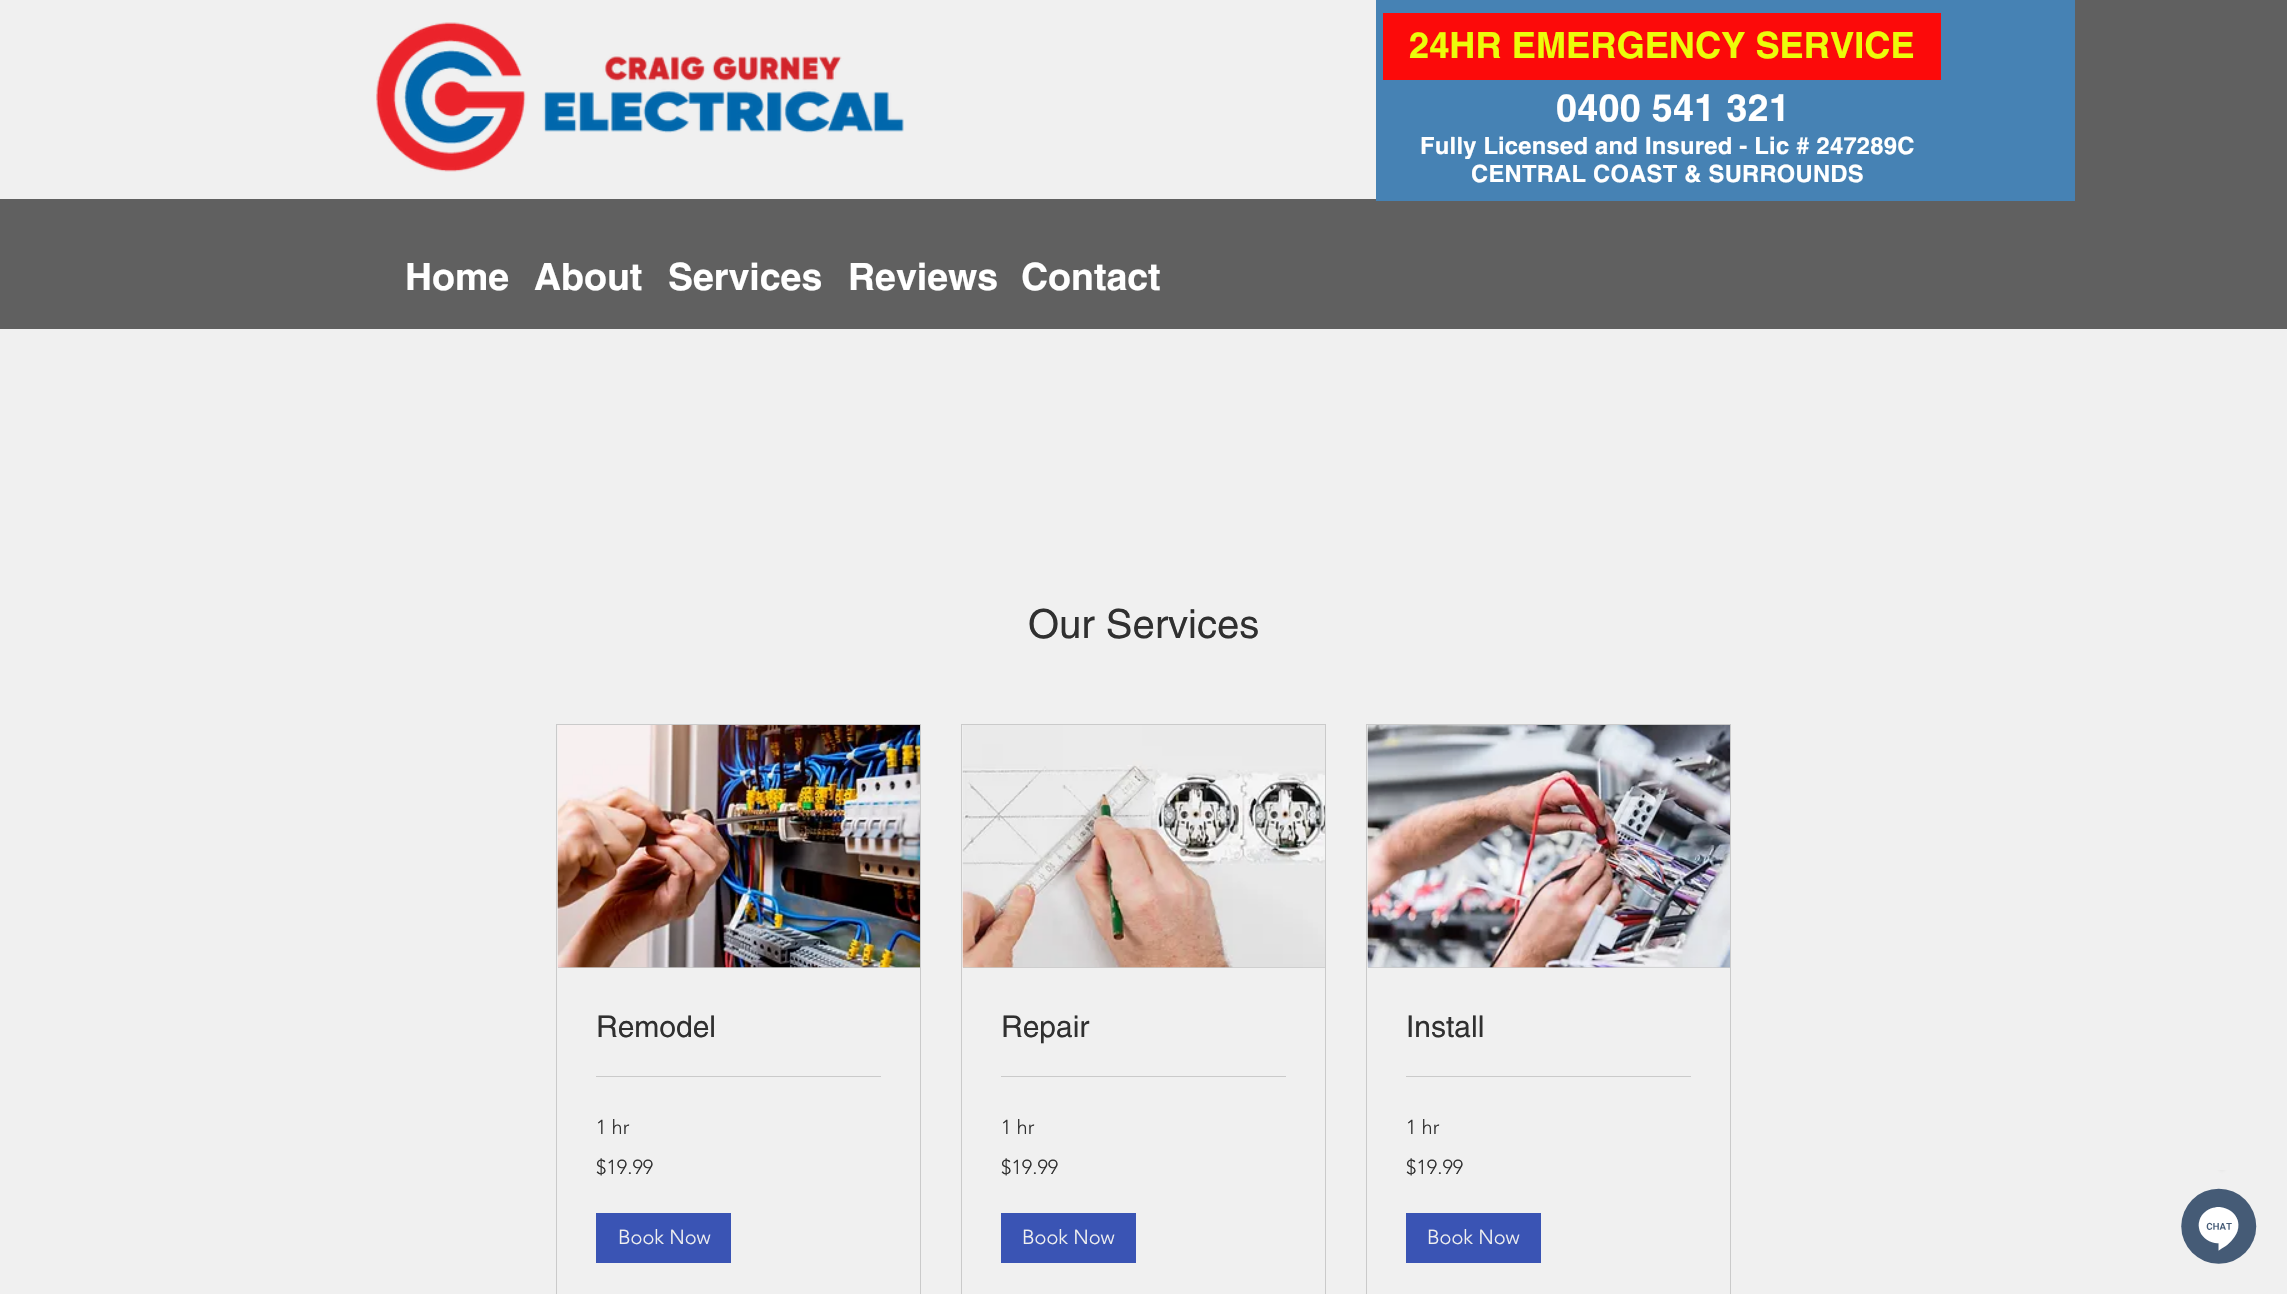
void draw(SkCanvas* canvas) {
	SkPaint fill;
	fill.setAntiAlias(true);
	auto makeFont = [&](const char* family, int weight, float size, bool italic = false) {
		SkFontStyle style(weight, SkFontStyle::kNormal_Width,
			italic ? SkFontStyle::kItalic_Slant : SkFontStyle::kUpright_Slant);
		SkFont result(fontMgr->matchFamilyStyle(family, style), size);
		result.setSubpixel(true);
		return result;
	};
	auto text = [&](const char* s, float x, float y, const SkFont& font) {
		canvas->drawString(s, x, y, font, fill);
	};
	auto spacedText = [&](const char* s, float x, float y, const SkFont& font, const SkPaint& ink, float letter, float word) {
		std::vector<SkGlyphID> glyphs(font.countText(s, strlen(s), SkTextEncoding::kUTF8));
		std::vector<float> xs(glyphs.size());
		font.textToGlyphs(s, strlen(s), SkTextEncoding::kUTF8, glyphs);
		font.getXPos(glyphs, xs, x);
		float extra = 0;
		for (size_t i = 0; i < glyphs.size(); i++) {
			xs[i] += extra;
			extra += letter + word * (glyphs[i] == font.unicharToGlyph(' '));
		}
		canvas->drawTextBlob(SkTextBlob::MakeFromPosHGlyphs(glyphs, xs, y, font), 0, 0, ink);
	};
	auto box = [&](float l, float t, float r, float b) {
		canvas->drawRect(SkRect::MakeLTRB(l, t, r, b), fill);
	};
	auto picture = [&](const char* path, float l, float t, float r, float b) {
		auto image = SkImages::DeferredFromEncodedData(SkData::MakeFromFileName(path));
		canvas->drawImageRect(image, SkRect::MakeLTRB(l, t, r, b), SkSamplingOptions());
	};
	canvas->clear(0xFFF0F0F0);
	fill.setColor(0xFF606060);
	box(0, 0, 2287, 329);
	fill.setColor(0xFFF0F0F0);
	box(0, 0, 1376, 199);
	picture("image0.png", 376, 22, 904, 172);
	fill.setColor(0xFF4682B4);
	box(1376, 0, 2075, 201);
	fill.setColor(0xFFFC0A0A);
	box(1383, 13, 1941, 80);
	fill.setStyle(SkPaint::kStroke_Style);
	fill.setStrokeWidth(1);
	fill.setColor(0xFFCACACA);
	canvas->drawRect(SkRect::MakeLTRB(556.5f, 724.5f, 920.5f, 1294.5f), fill);
	fill.setStyle(SkPaint::kFill_Style);
	box(558, 967, 920, 968);
	picture("image1.png", 557, 725, 920, 968);
	box(596, 1076, 881, 1077);
	fill.setColor(0xFF3A54B4);
	box(596, 1213, 731, 1263);
	fill.setStyle(SkPaint::kStroke_Style);
	fill.setColor(0xFFCACACA);
	canvas->drawRect(SkRect::MakeLTRB(961.5f, 724.5f, 1325.5f, 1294.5f), fill);
	fill.setStyle(SkPaint::kFill_Style);
	box(963, 967, 1325, 968);
	picture("image2.png", 962, 725, 1325, 968);
	box(1001, 1076, 1286, 1077);
	fill.setColor(0xFF3A54B4);
	box(1001, 1213, 1136, 1263);
	fill.setStyle(SkPaint::kStroke_Style);
	fill.setColor(0xFFCACACA);
	canvas->drawRect(SkRect::MakeLTRB(1366.5f, 724.5f, 1730.5f, 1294.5f), fill);
	fill.setStyle(SkPaint::kFill_Style);
	box(1368, 967, 1730, 968);
	picture("image3.png", 1367, 725, 1730, 968);
	box(1406, 1076, 1691, 1077);
	fill.setColor(0xFF3A54B4);
	box(1406, 1213, 1541, 1263);
	picture("image4.png", 2181, 1170, 2257, 1264);
	auto font1 = makeFont("helvetica", 700, 36.25f);
	fill.setColor(0xFFECFC0A);
	text("24HR EMERGENCY SERVICE", 1409, 58, font1);
	auto font2 = makeFont("helvetica", 700, 37.5f);
	fill.setColor(0xFFFFFFFF);
	spacedText("0400 541 321", 1556, 121, font2, fill, 0.4f, 0);
	auto font3 = makeFont("helvetica", 700, 23.75f);
	spacedText("Fully L", 1420, 154, font3, fill, 0.25f, 0);
	spacedText("icensed and Insured - Lic # 247289C", 1498, 154, font3, fill, 0.25f, 0);
	spacedText("CENTRAL COAST & SURROUNDS", 1471, 182, font3, fill, 0.25f, 0);
	text("Home", 405, 290, font2);
	text("About", 534, 290, font2);
	text("Services", 668, 290, font2);
	text("Reviews", 848, 290, font2);
	text("Contact", 1021, 290, font2);
	auto font4 = makeFont("helvetica", 400, 40);
	fill.setColor(0xFF303030);
	text("Our Services", 1028, 638, font4);
	auto font5 = makeFont("helvetica", 400, 30);
	text("Remodel", 596, 1037, font5);
	auto font6 = makeFont("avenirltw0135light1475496", 300, 20);
	text("1 hr", 596, 1134, font6);
	text("$19.99", 596, 1174, font6);
	fill.setColor(0xFFF0F0F0);
	text("Book Now", 618, 1244, font6);
	fill.setColor(0xFF303030);
	text("Repair", 1001, 1037, font5);
	text("1 hr", 1001, 1134, font6);
	text("$19.99", 1001, 1174, font6);
	fill.setColor(0xFFF0F0F0);
	text("Book Now", 1022, 1244, font6);
	fill.setColor(0xFF303030);
	text("Install", 1406, 1037, font5);
	text("1 hr", 1406, 1134, font6);
	text("$19.99", 1406, 1174, font6);
	fill.setColor(0xFFF0F0F0);
	text("Book Now", 1427, 1244, font6);
}
